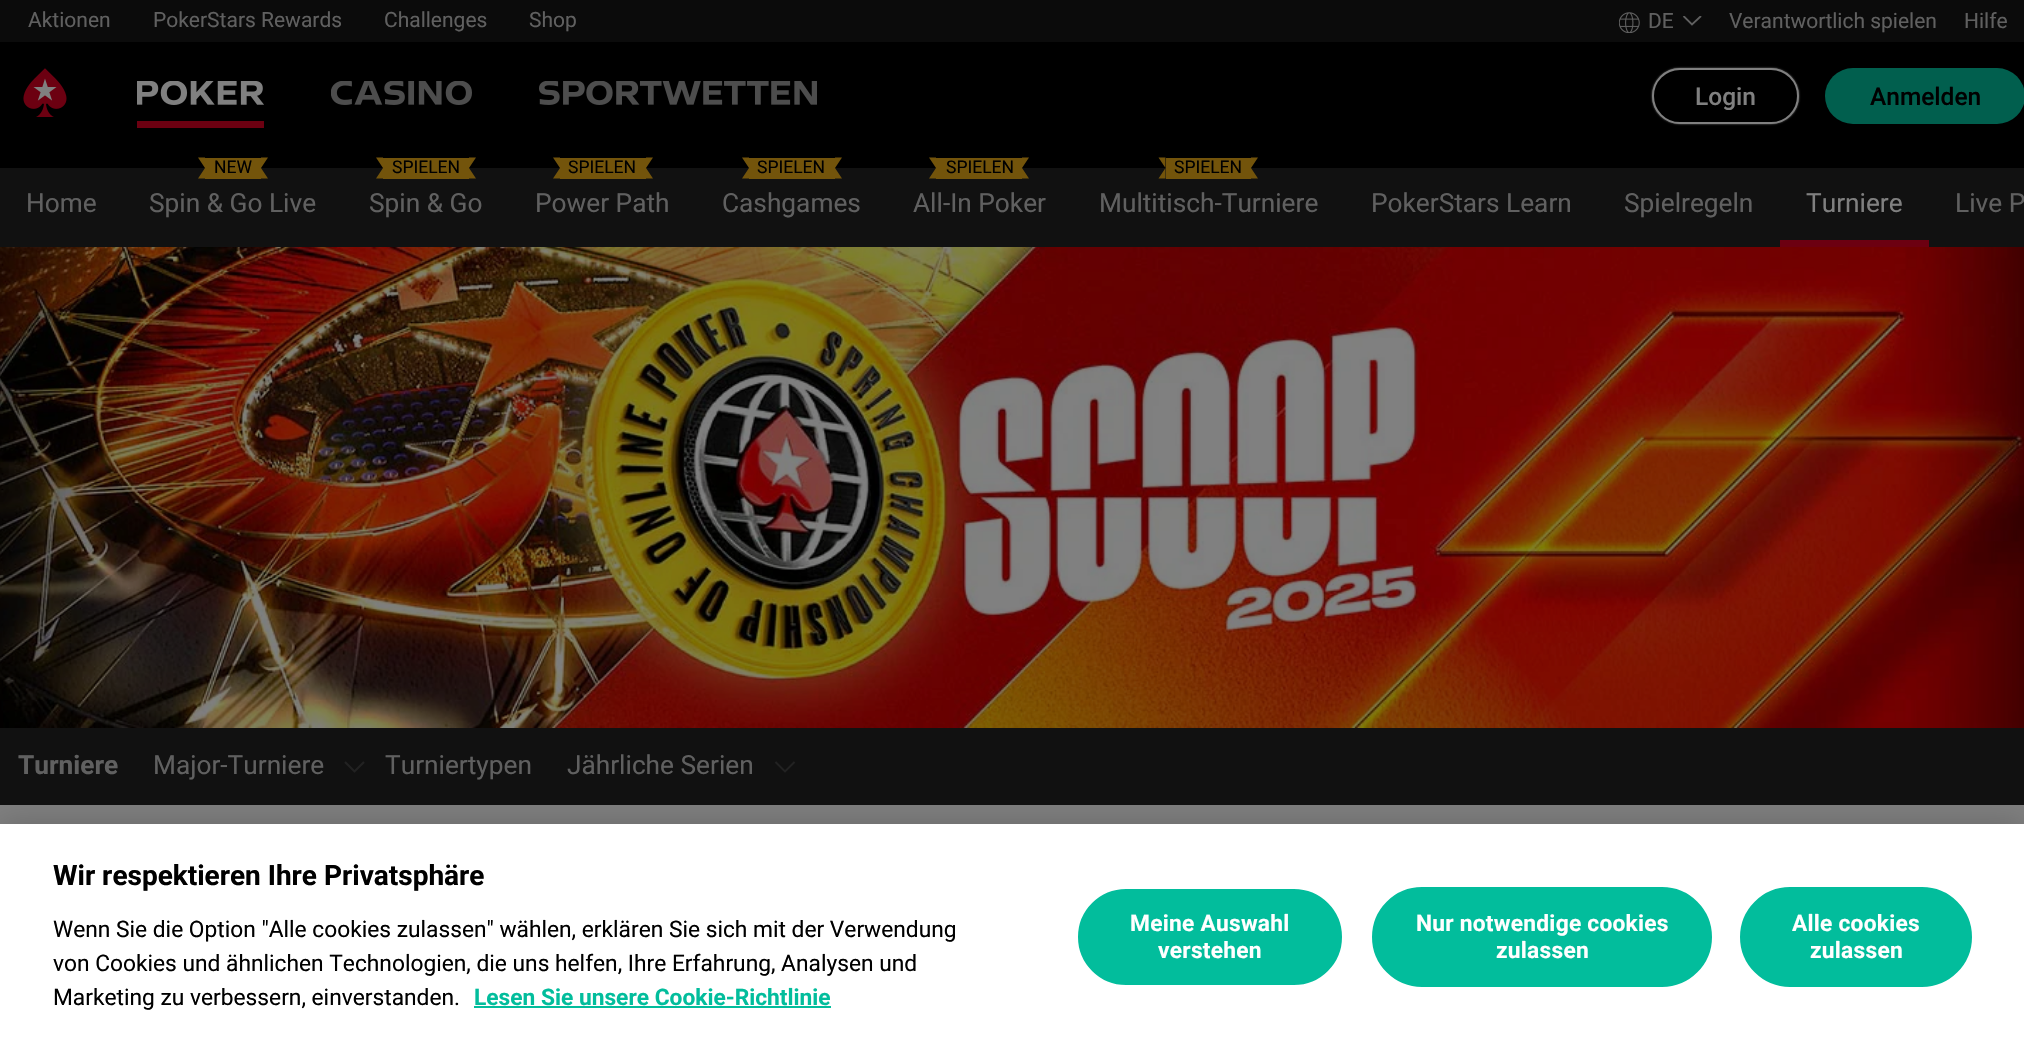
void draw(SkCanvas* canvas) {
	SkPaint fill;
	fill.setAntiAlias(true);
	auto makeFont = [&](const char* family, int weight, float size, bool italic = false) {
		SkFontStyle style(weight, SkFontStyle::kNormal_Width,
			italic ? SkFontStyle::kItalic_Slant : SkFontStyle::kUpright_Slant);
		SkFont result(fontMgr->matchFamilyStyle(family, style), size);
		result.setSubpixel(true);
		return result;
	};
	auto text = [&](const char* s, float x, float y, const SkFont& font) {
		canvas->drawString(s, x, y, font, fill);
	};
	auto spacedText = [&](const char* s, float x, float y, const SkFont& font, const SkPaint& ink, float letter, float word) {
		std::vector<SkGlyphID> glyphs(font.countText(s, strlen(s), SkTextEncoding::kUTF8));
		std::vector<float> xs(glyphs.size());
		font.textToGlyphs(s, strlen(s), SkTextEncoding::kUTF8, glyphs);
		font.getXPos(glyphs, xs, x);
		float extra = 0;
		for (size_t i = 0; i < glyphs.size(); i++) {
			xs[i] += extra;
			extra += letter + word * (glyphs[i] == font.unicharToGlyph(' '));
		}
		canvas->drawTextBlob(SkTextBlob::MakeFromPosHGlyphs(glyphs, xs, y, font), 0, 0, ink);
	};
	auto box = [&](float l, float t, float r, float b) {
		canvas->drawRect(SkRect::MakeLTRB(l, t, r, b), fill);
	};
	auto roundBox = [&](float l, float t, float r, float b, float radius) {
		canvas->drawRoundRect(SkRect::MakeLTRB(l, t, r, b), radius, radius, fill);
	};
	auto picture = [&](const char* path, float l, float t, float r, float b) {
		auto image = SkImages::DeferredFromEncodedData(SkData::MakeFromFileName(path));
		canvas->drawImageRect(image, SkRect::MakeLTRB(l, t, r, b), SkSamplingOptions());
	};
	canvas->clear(0xFF000000);
	fill.setColor(0xFF0B0B0B);
	box(0, 0, 2024, 42);
	picture("image0.png", 1619, 12, 1640, 33);
	canvas->save();
	canvas->clipRect(SkRect::MakeLTRB(1682, 16, 1703, 26));
	fill.setStyle(SkPaint::kStroke_Style);
	fill.setStrokeWidth(1.8f);
	fill.setColor(0xFF606060);
	canvas->drawPath(SkPathBuilder().moveTo(1701, 16).lineTo(1692, 24.5f).lineTo(1683.5f, 16).detach(), fill);
	canvas->restore();
	picture("image1.png", 23, 68, 67, 117);
	fill.setStyle(SkPaint::kFill_Style);
	fill.setColor(0xFF6C0011);
	box(137, 121, 264, 128);
	picture("image2.png", 137, 81, 264, 105);
	picture("image3.png", 331, 81, 472, 105);
	picture("image4.png", 539, 81, 817, 105);
	fill.setColor(0xFF808080);
	fill.setMaskFilter(SkMaskFilter::MakeBlur(kNormal_SkBlurStyle, 1));
	canvas->drawRoundRect(SkRect::MakeLTRB(1652, 68, 1799, 124), 28, 28, fill);
	fill.setMaskFilter(nullptr);
	fill.setColor(0xFF000000);
	canvas->drawRoundRect(SkRect::MakeLTRB(1653, 69, 1798, 123), 27, 27, fill);
	fill.setStyle(SkPaint::kStroke_Style);
	fill.setStrokeWidth(2);
	fill.setColor(0xFF808080);
	canvas->drawRoundRect(SkRect::MakeLTRB(1653, 69, 1798, 123), 27, 27, fill);
	fill.setStyle(SkPaint::kFill_Style);
	fill.setColor(0xFF015F4E);
	roundBox(1825, 68, 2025, 124, 28);
	fill.setColor(0xFF111111);
	box(0, 168, 2024, 247);
	fill.setColor(0xFF73540B);
	canvas->drawPath(SkPathBuilder().moveTo(198, 157.5f).lineTo(205, 157.5f).lineTo(205, 168).close().moveTo(205, 178.5f).lineTo(198, 178.5f).lineTo(205, 168).close().detach(), fill);
	canvas->drawPath(SkPathBuilder().moveTo(261, 157.5f).lineTo(268, 157.5f).lineTo(261, 168).close().moveTo(268, 178.5f).lineTo(261, 178.5f).lineTo(261, 168).close().detach(), fill);
	box(205, 158, 261, 179);
	canvas->drawPath(SkPathBuilder().moveTo(376, 157.5f).lineTo(383, 157.5f).lineTo(383, 168).close().moveTo(383, 178.5f).lineTo(376, 178.5f).lineTo(383, 168).close().detach(), fill);
	canvas->drawPath(SkPathBuilder().moveTo(469, 157.5f).lineTo(476, 157.5f).lineTo(469, 168).close().moveTo(476, 178.5f).lineTo(469, 178.5f).lineTo(469, 168).close().detach(), fill);
	box(383, 158, 469, 179);
	canvas->drawPath(SkPathBuilder().moveTo(553, 157.5f).lineTo(560, 157.5f).lineTo(560, 168).close().moveTo(560, 178.5f).lineTo(553, 178.5f).lineTo(560, 168).close().detach(), fill);
	canvas->drawPath(SkPathBuilder().moveTo(646, 157.5f).lineTo(653, 157.5f).lineTo(646, 168).close().moveTo(653, 178.5f).lineTo(646, 178.5f).lineTo(646, 168).close().detach(), fill);
	box(560, 158, 646, 179);
	canvas->drawPath(SkPathBuilder().moveTo(742, 157.5f).lineTo(749, 157.5f).lineTo(749, 168).close().moveTo(749, 178.5f).lineTo(742, 178.5f).lineTo(749, 168).close().detach(), fill);
	canvas->drawPath(SkPathBuilder().moveTo(835, 157.5f).lineTo(842, 157.5f).lineTo(835, 168).close().moveTo(842, 178.5f).lineTo(835, 178.5f).lineTo(835, 168).close().detach(), fill);
	box(749, 158, 835, 179);
	canvas->drawPath(SkPathBuilder().moveTo(929, 157.5f).lineTo(936, 157.5f).lineTo(936, 168).close().moveTo(936, 178.5f).lineTo(929, 178.5f).lineTo(936, 168).close().detach(), fill);
	canvas->drawPath(SkPathBuilder().moveTo(1022, 157.5f).lineTo(1029, 157.5f).lineTo(1022, 168).close().moveTo(1029, 178.5f).lineTo(1022, 178.5f).lineTo(1022, 168).close().detach(), fill);
	box(936, 158, 1022, 179);
	canvas->drawPath(SkPathBuilder().moveTo(1158.5f, 157.5f).lineTo(1165.5f, 157.5f).lineTo(1165.5f, 168).close().moveTo(1165.5f, 178.5f).lineTo(1158.5f, 178.5f).lineTo(1165.5f, 168).close().detach(), fill);
	canvas->drawPath(SkPathBuilder().moveTo(1251, 157.5f).lineTo(1258, 157.5f).lineTo(1251, 168).close().moveTo(1258, 178.5f).lineTo(1251, 178.5f).lineTo(1251, 168).close().detach(), fill);
	box(1166, 158, 1251, 179);
	fill.setColor(0xFF6C0011);
	box(1780, 240, 1929, 247);
	fill.setColor(0xFF808080);
	box(0, 805, 2024, 824);
	picture("image5.png", 0, 247, 2024, 728);
	fill.setColor(0xFF111111);
	box(0, 728, 2024, 805);
	fill.setStyle(SkPaint::kStroke_Style);
	fill.setStrokeWidth(1.9f);
	fill.setColor(0xFF222222);
	canvas->drawPath(SkPathBuilder().moveTo(364, 762).lineTo(354.5f, 771.5f).lineTo(345, 762).detach(), fill);
	canvas->drawPath(SkPathBuilder().moveTo(794.5f, 762).lineTo(785, 771.5f).lineTo(775.5f, 762).detach(), fill);
	fill.setStyle(SkPaint::kFill_Style);
	fill.setColor(0x33000000);
	fill.setMaskFilter(SkMaskFilter::MakeBlur(kNormal_SkBlurStyle, 16));
	canvas->drawRect(SkRect::MakeLTRB(0, 824, 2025, 1050), fill);
	fill.setMaskFilter(nullptr);
	fill.setColor(0xFFFFFFFF);
	box(0, 824, 2024, 1050);
	fill.setColor(0xFF02BD9C);
	box(474, 1006, 831, 1008);
	canvas->drawRoundRect(SkRect::MakeLTRB(1077, 888, 1343, 986), 49, 49, fill);
	fill.setStyle(SkPaint::kStroke_Style);
	fill.setStrokeWidth(2);
	fill.setColor(0xFFFFFFFF);
	canvas->drawRoundRect(SkRect::MakeLTRB(1077, 888, 1343, 986), 49, 49, fill);
	fill.setStyle(SkPaint::kFill_Style);
	fill.setColor(0xFF02BD9C);
	canvas->drawRoundRect(SkRect::MakeLTRB(1373, 888, 1711, 986), 49, 49, fill);
	fill.setStyle(SkPaint::kStroke_Style);
	canvas->drawRoundRect(SkRect::MakeLTRB(1373, 888, 1711, 986), 49, 49, fill);
	fill.setStyle(SkPaint::kFill_Style);
	canvas->drawRoundRect(SkRect::MakeLTRB(1741, 888, 1971, 986), 49, 49, fill);
	fill.setStyle(SkPaint::kStroke_Style);
	canvas->drawRoundRect(SkRect::MakeLTRB(1741, 888, 1971, 986), 49, 49, fill);
	auto font1 = makeFont("Roboto", 400, 21);
	fill.setStyle(SkPaint::kFill_Style);
	fill.setColor(0xFF606060);
	text("Aktionen", 28, 27, font1);
	text("PokerStars Rewards", 153, 27, font1);
	text("Challenges", 384, 27, font1);
	text("Shop", 529, 27, font1);
	text("DE", 1648, 28, font1);
	text("Verantwortlich spielen", 1729, 28, font1);
	text("Hilfe", 1964, 28, font1);
	auto font2 = makeFont("Roboto", 500, 24.5f);
	fill.setColor(0xFF808080);
	text("Login", 1695, 105, font2);
	fill.setColor(0xFF000000);
	text("Anmelden", 1870, 105, font2);
	auto font3 = makeFont("Roboto", 400, 26.25f);
	fill.setColor(0xFF606060);
	text("Home", 26, 212, font3);
	auto font4 = makeFont("Roboto", 400, 17.5f);
	fill.setColor(0xFF000000);
	text("NEW", 214, 173, font4);
	fill.setColor(0xFF606060);
	text("Spin & Go Live", 149, 212, font3);
	fill.setColor(0xFF000000);
	text("SPIELEN", 392, 173, font4);
	fill.setColor(0xFF606060);
	text("Spin & Go", 369, 212, font3);
	fill.setColor(0xFF000000);
	text("SPIELEN", 568, 173, font4);
	fill.setColor(0xFF606060);
	text("Power Path", 535, 212, font3);
	fill.setColor(0xFF000000);
	text("SPIELEN", 757, 173, font4);
	fill.setColor(0xFF606060);
	text("Cashgames", 722, 212, font3);
	fill.setColor(0xFF000000);
	text("SPIELEN", 946, 173, font4);
	fill.setColor(0xFF606060);
	text("All-In Poker", 913, 212, font3);
	fill.setColor(0xFF000000);
	text("SPIELEN", 1174, 173, font4);
	fill.setColor(0xFF606060);
	text("Multitisch-Turniere", 1099, 212, font3);
	text("PokerStars Learn", 1371, 212, font3);
	text("Spielregeln", 1624, 212, font3);
	fill.setColor(0xFF808080);
	text("Turniere", 1806, 212, font3);
	fill.setColor(0xFF606060);
	text("Live P", 1955, 212, font3);
	auto font5 = makeFont("Roboto", 700, 26.25f);
	text("Turniere", 18, 774, font5);
	text("Major-Turniere", 153, 774, font3);
	text("Turniertypen", 385, 774, font3);
	text("Jährliche Serien", 567, 774, font3);
	auto font6 = makeFont("Roboto", 700, 28);
	fill.setColor(0xFF000000);
	text("Wir respektieren Ihre Privatsphäre", 53, 885, font6);
	auto font7 = makeFont("Roboto", 400, 22.75f);
	text("Wenn Sie die Option \"Alle cookies zulassen\" wählen, erklären Sie sich mit der Verwendung", 53, 937, font7);
	text("von Cookies und ähnlichen Technologien, die uns helfen, Ihre Erfahrung, Analysen und", 53, 971, font7);
	text("Marketing zu verbessern, einverstanden.", 53, 1005, font7);
	auto font8 = makeFont("Roboto", 700, 22.75f);
	fill.setColor(0xFF02BD9C);
	text("Lesen Sie unsere Cookie-Richtlinie", 474, 1005, font8);
	fill.setColor(0xFFFFFFFF);
	spacedText("Meine Auswahl", 1130, 931, font8, fill, 0.25f, 0);
	spacedText("verstehen", 1158, 958, font8, fill, 0.25f, 0);
	spacedText("Nur notwendige cookies", 1416, 931, font8, fill, 0.25f, 0);
	spacedText("zulassen", 1496, 958, font8, fill, 0.25f, 0);
	spacedText("Alle cookies", 1792, 931, font8, fill, 0.25f, 0);
	spacedText("zulassen", 1810, 958, font8, fill, 0.25f, 0);
}
